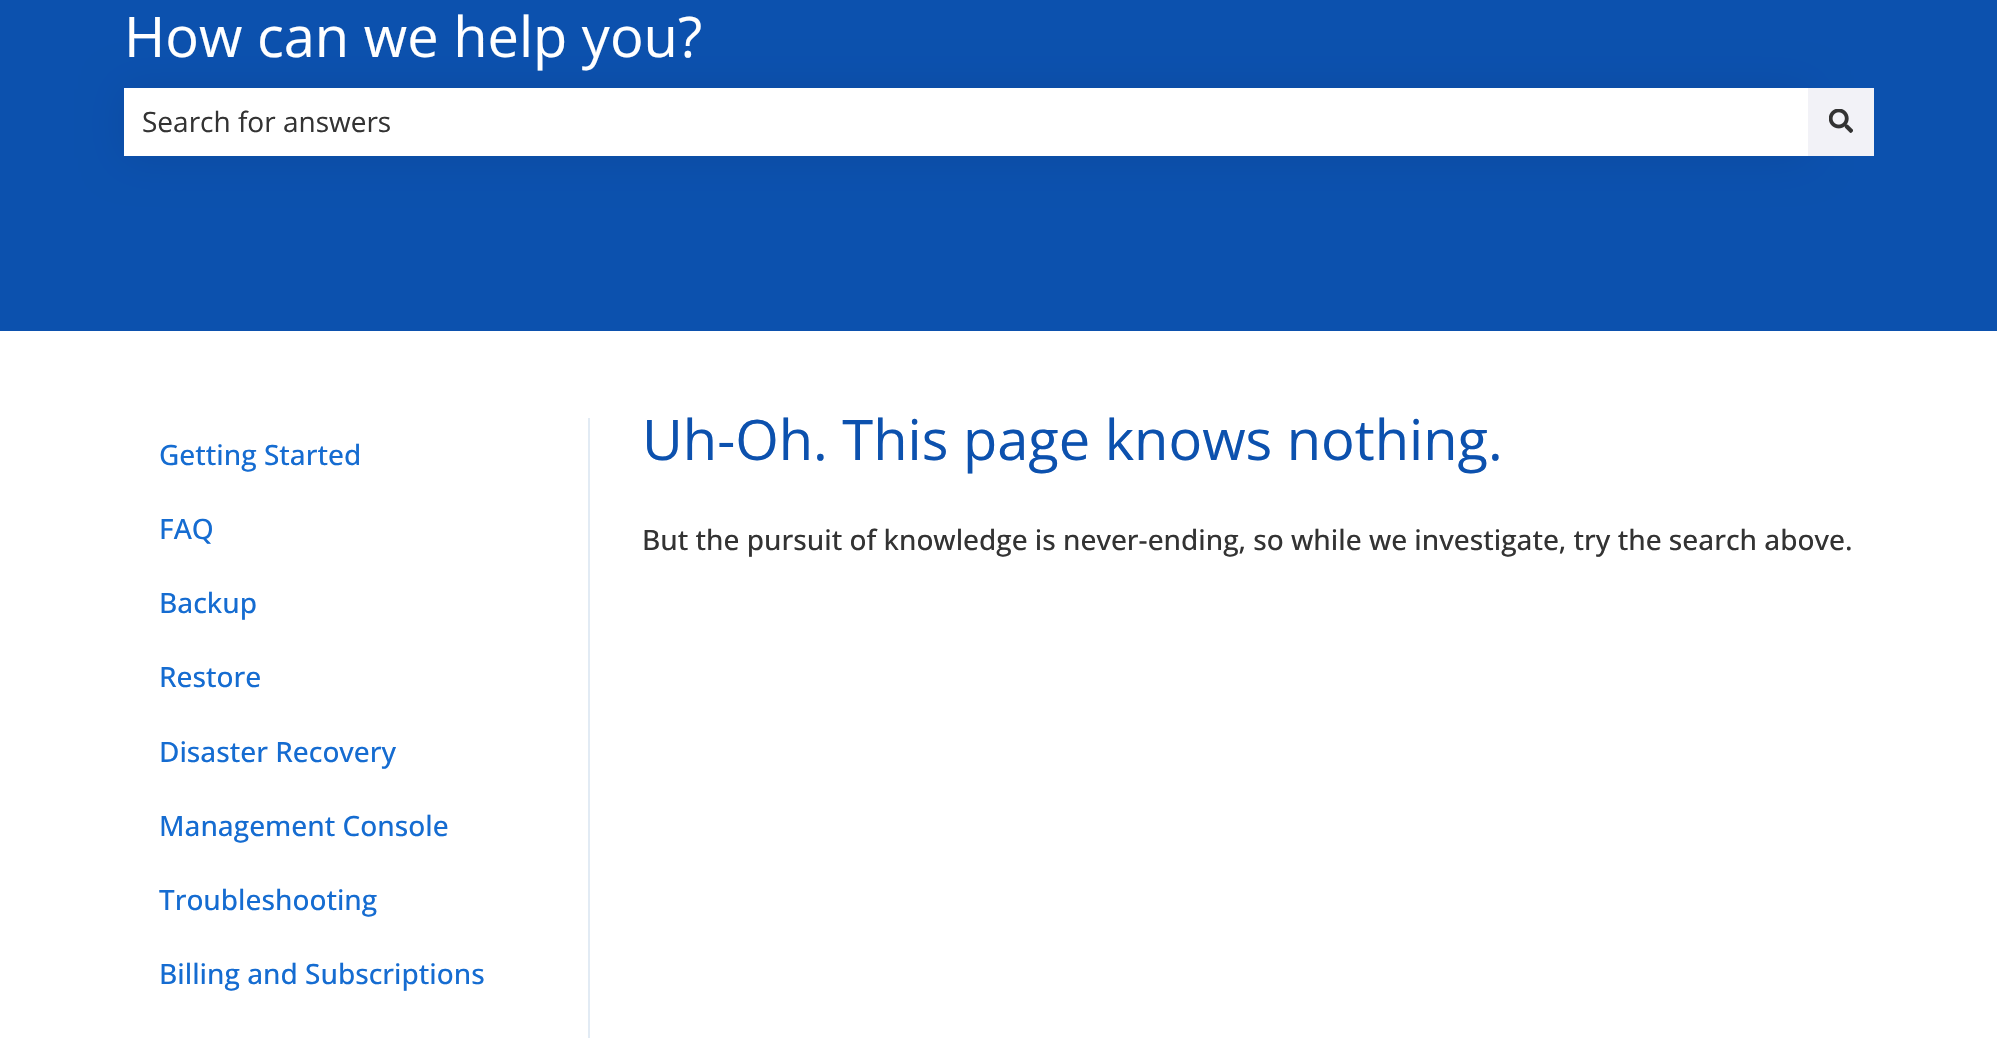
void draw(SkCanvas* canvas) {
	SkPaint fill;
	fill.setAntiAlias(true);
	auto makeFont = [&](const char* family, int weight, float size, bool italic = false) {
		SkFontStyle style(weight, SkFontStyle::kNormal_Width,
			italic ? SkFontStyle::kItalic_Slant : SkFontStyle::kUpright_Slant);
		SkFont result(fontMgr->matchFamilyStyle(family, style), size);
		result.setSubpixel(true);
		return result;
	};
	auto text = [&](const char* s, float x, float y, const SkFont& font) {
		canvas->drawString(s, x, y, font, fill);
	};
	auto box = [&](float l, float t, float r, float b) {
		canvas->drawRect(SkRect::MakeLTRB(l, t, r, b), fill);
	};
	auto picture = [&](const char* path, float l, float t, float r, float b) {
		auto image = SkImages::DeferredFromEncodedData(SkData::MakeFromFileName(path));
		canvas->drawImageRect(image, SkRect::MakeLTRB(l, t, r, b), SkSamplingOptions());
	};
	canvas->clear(0xFFFFFFFF);
	fill.setColor(0xFF0C51AE);
	box(0, 0, 1997, 331);
	fill.setColor(0x14000000);
	fill.setMaskFilter(SkMaskFilter::MakeBlur(kNormal_SkBlurStyle, 21));
	canvas->drawRect(SkRect::MakeLTRB(124, 89, 1808, 158), fill);
	fill.setMaskFilter(nullptr);
	fill.setColor(0xFFFFFFFF);
	box(124, 88, 1808, 156);
	fill.setColor(0xFFF2F2F7);
	box(1808, 88, 1874, 156);
	picture("image0.png", 1829, 109, 1853, 133);
	fill.setColor(0xFFE2EBF4);
	box(588, 418, 590, 1038);
	auto font1 = makeFont("Open Sans", 400, 56);
	fill.setColor(0xFFFFFFFF);
	text("How can we help you?", 124, 57, font1);
	auto font2 = makeFont("Open Sans", 400, 28);
	fill.setColor(0xFF333333);
	text("Search for answers", 142, 132, font2);
	auto font3 = makeFont("Open Sans", 500, 28);
	fill.setColor(0xFF156CD1);
	text("Getting Started", 159, 465, font3);
	text("FAQ", 159, 539, font3);
	text("Backup", 159, 613, font3);
	text("Restore", 159, 687, font3);
	text("Disaster Recovery", 159, 762, font3);
	text("Management Console", 159, 836, font3);
	text("Troubleshooting", 159, 910, font3);
	text("Billing and Subscriptions", 159, 984, font3);
	fill.setColor(0xFF0C51AE);
	text("Uh-Oh. This page knows nothing.", 642, 460, font1);
	fill.setColor(0xFF333333);
	text("But the pursuit of knowledge is never-ending, so while we investigate, try the search above.", 642, 550, font3);
}
